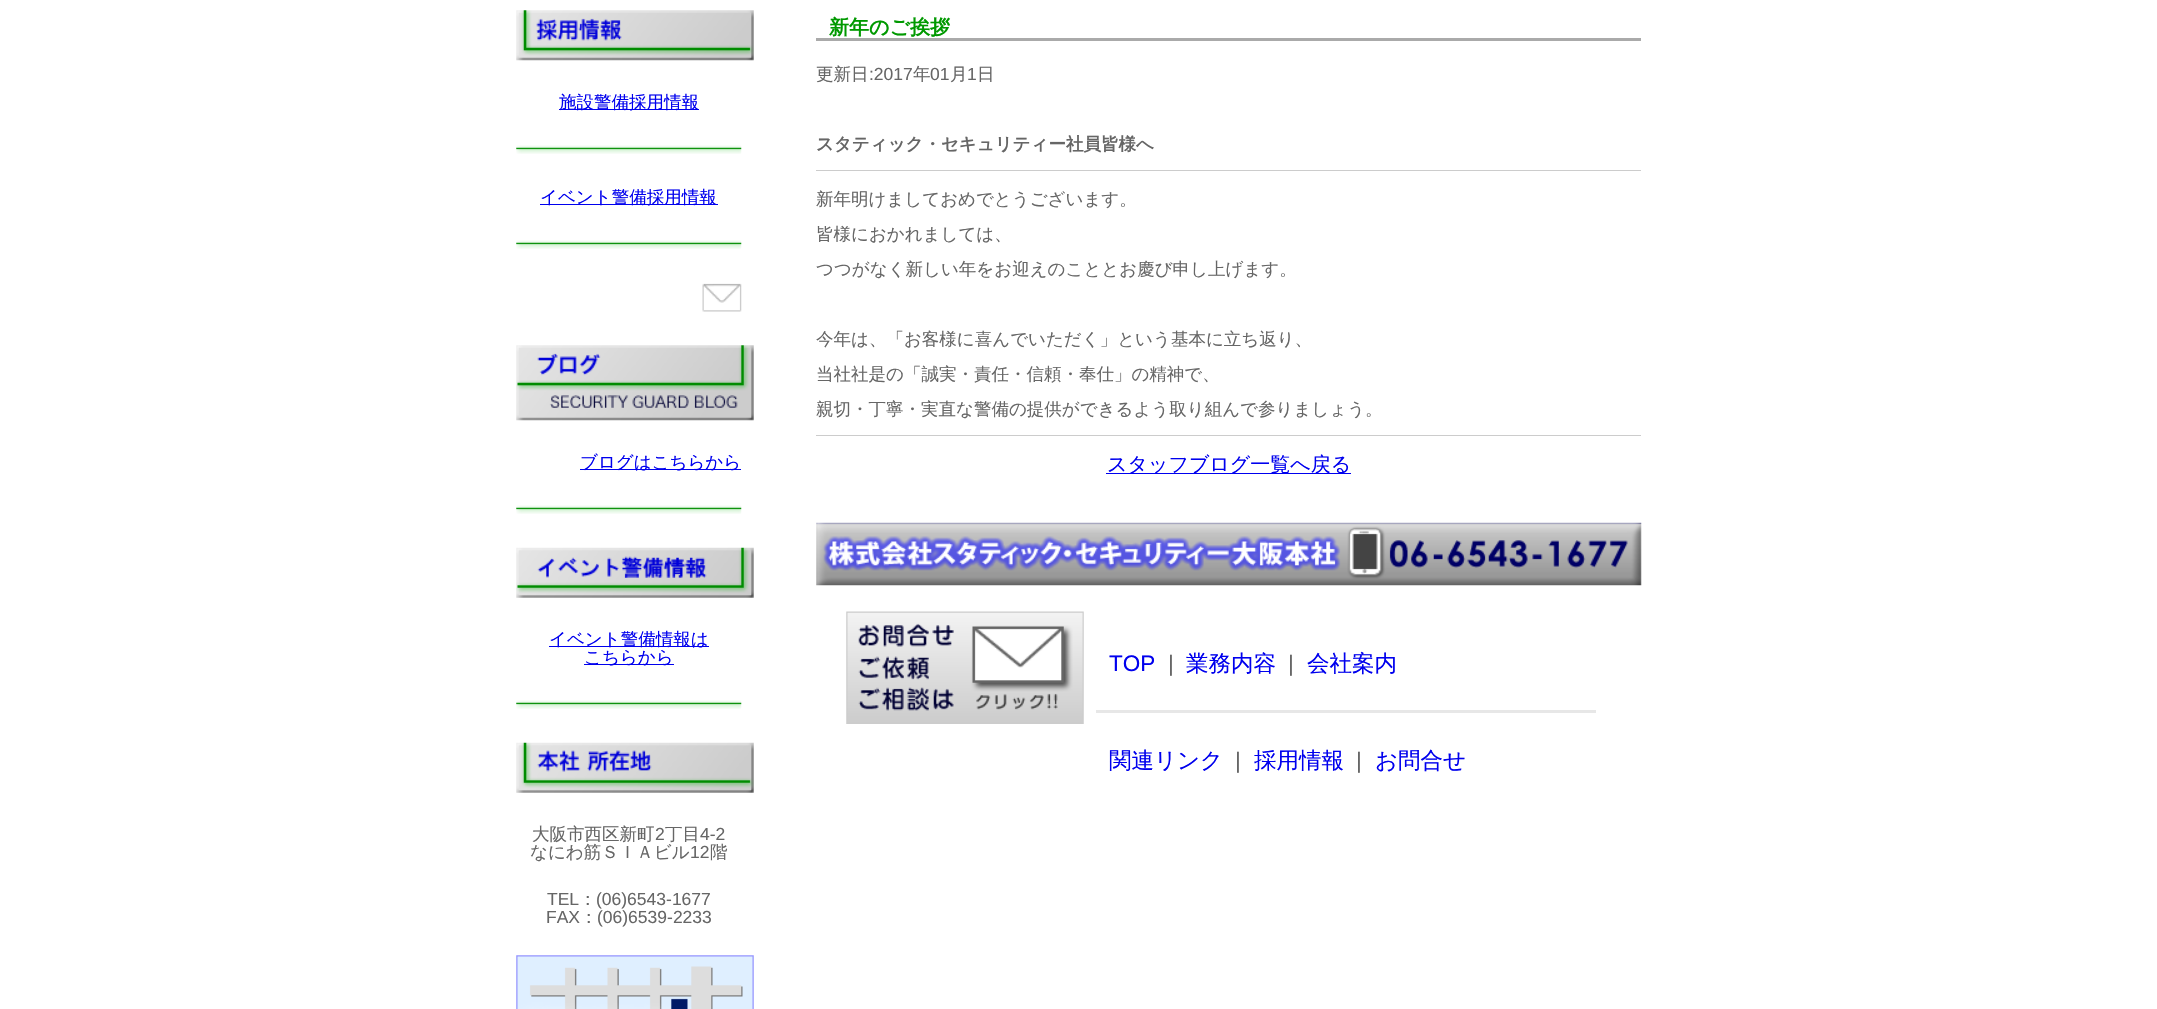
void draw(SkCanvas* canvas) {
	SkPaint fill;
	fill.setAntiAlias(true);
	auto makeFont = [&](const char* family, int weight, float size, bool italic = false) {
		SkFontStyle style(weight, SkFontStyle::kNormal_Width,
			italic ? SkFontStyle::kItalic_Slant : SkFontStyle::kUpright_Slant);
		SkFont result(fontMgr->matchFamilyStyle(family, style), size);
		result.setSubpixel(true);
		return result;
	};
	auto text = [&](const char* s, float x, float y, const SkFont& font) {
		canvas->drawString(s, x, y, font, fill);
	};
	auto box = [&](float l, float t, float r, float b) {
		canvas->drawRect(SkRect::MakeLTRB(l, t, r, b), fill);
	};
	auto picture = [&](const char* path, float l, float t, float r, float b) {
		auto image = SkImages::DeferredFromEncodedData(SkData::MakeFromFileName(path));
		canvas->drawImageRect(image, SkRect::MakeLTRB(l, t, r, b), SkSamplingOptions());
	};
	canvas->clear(0xFFFFFFFF);
	picture("image0.png", 516, 10, 754, 61);
	fill.setColor(0xFF0000EE);
	box(559, 109, 699, 110);
	picture("image1.png", 516, 145, 742, 154);
	box(540, 204, 718, 205);
	picture("image1.png", 516, 240, 742, 249);
	picture("image2.png", 702, 283, 742, 312);
	picture("image3.png", 516, 345, 754, 421);
	box(580, 469, 741, 470);
	picture("image1.png", 516, 505, 742, 514);
	picture("image4.png", 516, 547, 754, 598);
	box(549, 646, 709, 647);
	box(584, 664, 674, 665);
	picture("image1.png", 516, 700, 742, 709);
	picture("image5.png", 516, 742, 754, 793);
	picture("image6.png", 516, 955, 754, 1009);
	fill.setColor(0xFFAAAAAA);
	box(816, 38, 1641, 41);
	fill.setColor(0xFFCCCCCC);
	box(816, 170, 1641, 171);
	box(816, 435, 1641, 436);
	fill.setColor(0xFF0000EE);
	box(1106, 473, 1351, 474);
	picture("image7.png", 816, 522, 1642, 586);
	picture("image8.png", 846, 611, 1084, 724);
	fill.setColor(0xFFE7E7E7);
	box(1096, 710, 1596, 713);
	auto font1 = makeFont("WenQuanYi Zen Hei", 500, 17.5f);
	fill.setColor(0xFF0000EE);
	text("施設警備採用情報", 559, 108, font1);
	text("イベント警備採用情報", 540, 203, font1);
	text("ブログはこちらから", 580, 468, font1);
	text("イベント警備情報は", 549, 645, font1);
	text("こちらから", 584, 663, font1);
	fill.setColor(0xFF666666);
	text("大阪市西区新町", 532, 840, font1);
	auto font2 = makeFont("Liberation Sans", 400, 17.5f);
	text("2", 655, 840, font2);
	text("丁目", 665, 840, font1);
	text("4-2", 700, 840, font2);
	text("なにわ筋ＳＩＡビル", 530, 858, font1);
	text("12", 690, 858, font2);
	text("階", 710, 858, font1);
	text("TEL", 547, 905, font2);
	text("：", 579, 905, font1);
	text("(06)6543-1677", 596, 905, font2);
	text("FAX", 546, 923, font2);
	text("：", 580, 923, font1);
	text("(06)6539-2233", 597, 923, font2);
	auto font3 = makeFont("WenQuanYi Zen Hei", 700, 20);
	fill.setColor(0xFF009900);
	text("新年のご挨拶", 829, 34, font3);
	fill.setColor(0xFF666666);
	text("更新日", 816, 80, font1);
	text(":2017", 869, 80, font2);
	text("年", 913, 80, font1);
	text("01", 930, 80, font2);
	text("月", 950, 80, font1);
	text("1", 967, 80, font2);
	text("日", 977, 80, font1);
	auto font4 = makeFont("WenQuanYi Zen Hei", 700, 17.5f);
	text("スタティック・セキュリティー社員皆様へ", 816, 150, font4);
	text("新年明けましておめでとうございます。", 816, 205, font1);
	text("皆様におかれましては、", 816, 240, font1);
	text("つつがなく新しい年をお迎えのこととお慶び申し上げます。", 816, 275, font1);
	text("今年は、「お客様に喜んでいただく」という基本に立ち返り、", 816, 345, font1);
	text("当社社是の「誠実・責任・信頼・奉仕」の精神で、", 816, 380, font1);
	text("親切・丁寧・実直な警備の提供ができるよう取り組んで参りましょう。", 816, 415, font1);
	auto font5 = makeFont("WenQuanYi Zen Hei", 500, 20);
	fill.setColor(0xFF0000EE);
	text("スタッフブログ一覧へ戻る", 1107, 471, font5);
	auto font6 = makeFont("Liberation Sans", 400, 22.5f);
	text("TOP", 1109, 671, font6);
	fill.setColor(0xFF666666);
	text("|", 1168, 671, font6);
	auto font7 = makeFont("WenQuanYi Zen Hei", 500, 22.5f);
	fill.setColor(0xFF0000EE);
	text("業務内容", 1186, 671, font7);
	fill.setColor(0xFF666666);
	text("|", 1288, 671, font6);
	fill.setColor(0xFF0000EE);
	text("会社案内", 1307, 671, font7);
	text("関連リンク", 1109, 768, font7);
	fill.setColor(0xFF666666);
	text("|", 1235, 768, font6);
	fill.setColor(0xFF0000EE);
	text("採用情報", 1254, 768, font7);
	fill.setColor(0xFF666666);
	text("|", 1356, 768, font6);
	fill.setColor(0xFF0000EE);
	text("お問合せ", 1375, 768, font7);
}
